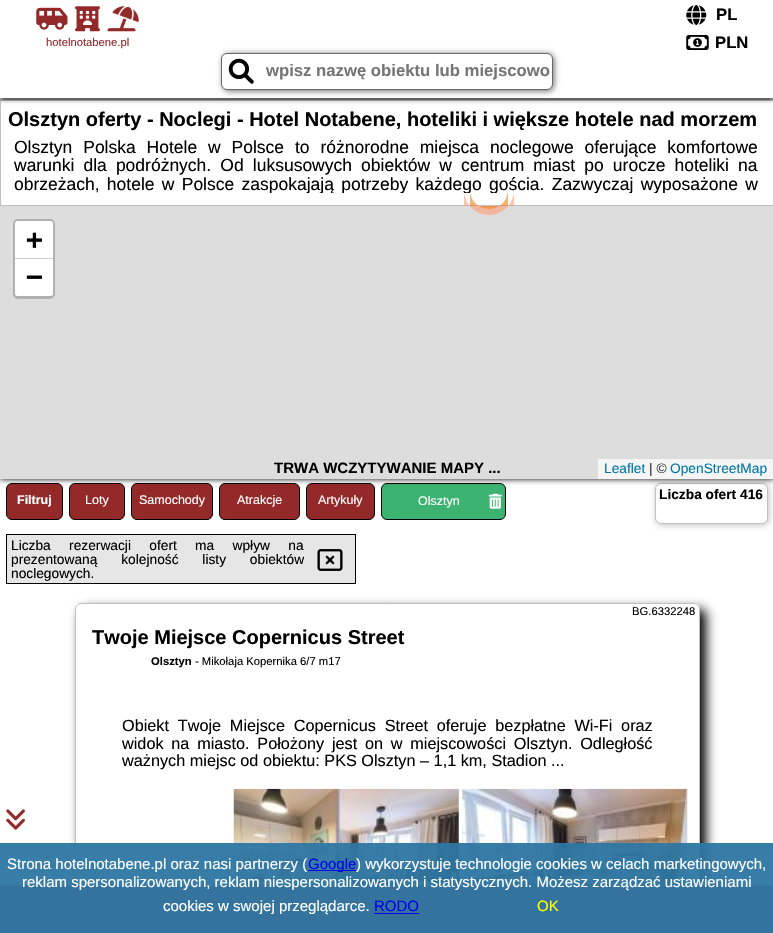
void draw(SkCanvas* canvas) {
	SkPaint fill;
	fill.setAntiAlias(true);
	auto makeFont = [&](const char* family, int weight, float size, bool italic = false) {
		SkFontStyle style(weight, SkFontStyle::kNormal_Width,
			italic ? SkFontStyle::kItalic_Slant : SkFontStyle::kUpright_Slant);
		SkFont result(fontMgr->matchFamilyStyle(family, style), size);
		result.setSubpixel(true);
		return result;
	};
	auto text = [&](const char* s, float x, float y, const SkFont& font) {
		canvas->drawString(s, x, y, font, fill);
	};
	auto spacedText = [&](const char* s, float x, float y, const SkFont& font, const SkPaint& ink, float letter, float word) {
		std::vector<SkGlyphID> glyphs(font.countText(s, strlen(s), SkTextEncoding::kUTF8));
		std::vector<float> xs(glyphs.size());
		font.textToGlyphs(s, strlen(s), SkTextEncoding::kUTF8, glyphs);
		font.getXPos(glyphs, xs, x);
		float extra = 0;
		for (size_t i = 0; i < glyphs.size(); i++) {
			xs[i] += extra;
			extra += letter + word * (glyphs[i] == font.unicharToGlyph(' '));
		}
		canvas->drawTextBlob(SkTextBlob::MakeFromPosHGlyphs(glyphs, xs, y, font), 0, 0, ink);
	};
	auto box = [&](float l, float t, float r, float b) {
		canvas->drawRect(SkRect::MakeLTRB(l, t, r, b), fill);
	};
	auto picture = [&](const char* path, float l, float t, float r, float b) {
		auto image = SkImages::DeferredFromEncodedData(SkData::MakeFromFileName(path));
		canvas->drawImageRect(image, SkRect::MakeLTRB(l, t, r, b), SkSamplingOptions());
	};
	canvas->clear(0xFFFFFFFF);
	fill.setColor(0xFF942929);
	canvas->drawRoundRect(SkRect::MakeLTRB(6.5f, 483.5f, 62.5f, 519.5f), 5.5f, 5.5f, fill);
	fill.setStyle(SkPaint::kStroke_Style);
	fill.setStrokeWidth(1);
	fill.setColor(0xFF000000);
	canvas->drawRoundRect(SkRect::MakeLTRB(6.5f, 483.5f, 62.5f, 519.5f), 5.5f, 5.5f, fill);
	fill.setStyle(SkPaint::kFill_Style);
	fill.setColor(0xFF942929);
	canvas->drawRoundRect(SkRect::MakeLTRB(69.5f, 483.5f, 124.5f, 519.5f), 5.5f, 5.5f, fill);
	fill.setStyle(SkPaint::kStroke_Style);
	fill.setColor(0xFF000000);
	canvas->drawRoundRect(SkRect::MakeLTRB(69.5f, 483.5f, 124.5f, 519.5f), 5.5f, 5.5f, fill);
	fill.setStyle(SkPaint::kFill_Style);
	fill.setColor(0xFF942929);
	canvas->drawRoundRect(SkRect::MakeLTRB(131.5f, 483.5f, 212.5f, 519.5f), 5.5f, 5.5f, fill);
	fill.setStyle(SkPaint::kStroke_Style);
	fill.setColor(0xFF000000);
	canvas->drawRoundRect(SkRect::MakeLTRB(131.5f, 483.5f, 212.5f, 519.5f), 5.5f, 5.5f, fill);
	fill.setStyle(SkPaint::kFill_Style);
	fill.setColor(0xFF942929);
	canvas->drawRoundRect(SkRect::MakeLTRB(219.5f, 483.5f, 299.5f, 519.5f), 5.5f, 5.5f, fill);
	fill.setStyle(SkPaint::kStroke_Style);
	fill.setColor(0xFF000000);
	canvas->drawRoundRect(SkRect::MakeLTRB(219.5f, 483.5f, 299.5f, 519.5f), 5.5f, 5.5f, fill);
	fill.setStyle(SkPaint::kFill_Style);
	fill.setColor(0xFF942929);
	canvas->drawRoundRect(SkRect::MakeLTRB(306.5f, 483.5f, 374.5f, 519.5f), 5.5f, 5.5f, fill);
	fill.setStyle(SkPaint::kStroke_Style);
	fill.setColor(0xFF000000);
	canvas->drawRoundRect(SkRect::MakeLTRB(306.5f, 483.5f, 374.5f, 519.5f), 5.5f, 5.5f, fill);
	fill.setStyle(SkPaint::kFill_Style);
	fill.setColor(0xFF3CB371);
	canvas->drawRoundRect(SkRect::MakeLTRB(381.5f, 483.5f, 505.5f, 519.5f), 5.5f, 5.5f, fill);
	fill.setStyle(SkPaint::kStroke_Style);
	fill.setColor(0xFF000000);
	canvas->drawRoundRect(SkRect::MakeLTRB(381.5f, 483.5f, 505.5f, 519.5f), 5.5f, 5.5f, fill);
	fill.setStyle(SkPaint::kFill_Style);
	fill.setColor(0xFFC0C0C0);
	fill.setMaskFilter(SkMaskFilter::MakeBlur(kNormal_SkBlurStyle, 3));
	canvas->drawRoundRect(SkRect::MakeLTRB(656, 484, 769, 525), 6, 6, fill);
	fill.setMaskFilter(nullptr);
	fill.setColor(0xFFFFFFFF);
	canvas->drawRoundRect(SkRect::MakeLTRB(655.5f, 483.5f, 767.5f, 523.5f), 5.5f, 5.5f, fill);
	fill.setStyle(SkPaint::kStroke_Style);
	fill.setColor(0xFFC0C0C0);
	canvas->drawRoundRect(SkRect::MakeLTRB(655.5f, 483.5f, 767.5f, 523.5f), 5.5f, 5.5f, fill);
	canvas->save();
	canvas->clipPath(SkPathBuilder(SkPathFillType::kEvenOdd).moveTo(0, 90).lineTo(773, 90).lineTo(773, 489).lineTo(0, 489).close().moveTo(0, 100).lineTo(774, 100).lineTo(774, 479).lineTo(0, 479).close().detach(), true);
	fill.setStyle(SkPaint::kFill_Style);
	fill.setColor(0xFF000000);
	fill.setMaskFilter(SkMaskFilter::MakeBlur(kNormal_SkBlurStyle, 3));
	canvas->drawRect(SkRect::MakeLTRB(0, 100, 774, 479), fill);
	fill.setMaskFilter(nullptr);
	canvas->restore();
	fill.setStyle(SkPaint::kStroke_Style);
	fill.setColor(0xFFC0C0C0);
	canvas->drawRect(SkRect::MakeLTRB(0.5f, 100.5f, 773.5f, 205.5f), fill);
	fill.setStyle(SkPaint::kFill_Style);
	fill.setColor(0xFF000000);
	fill.setMaskFilter(SkMaskFilter::MakeBlur(kNormal_SkBlurStyle, 3));
	canvas->drawRect(SkRect::MakeLTRB(0, 0, 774, 98), fill);
	fill.setMaskFilter(nullptr);
	fill.setColor(0xFFFFFFFF);
	box(0, 0, 773, 98);
	picture("image0.png", 686, 5, 707, 25);
	picture("image1.png", 36, 7, 68, 30);
	picture("image2.png", 75, 6, 100, 32);
	picture("image3.png", 107, 6, 139, 32);
	picture("image4.png", 686, 35, 709, 50);
	fill.setColor(0xFF676868);
	fill.setMaskFilter(SkMaskFilter::MakeBlur(kNormal_SkBlurStyle, 3));
	canvas->drawRoundRect(SkRect::MakeLTRB(223, 54, 554, 91), 6, 6, fill);
	fill.setMaskFilter(nullptr);
	fill.setColor(0xFFFFFFFF);
	canvas->drawRoundRect(SkRect::MakeLTRB(221.5f, 53.5f, 552.5f, 89.5f), 5.5f, 5.5f, fill);
	fill.setStyle(SkPaint::kStroke_Style);
	fill.setColor(0xFF676868);
	canvas->drawRoundRect(SkRect::MakeLTRB(221.5f, 53.5f, 552.5f, 89.5f), 5.5f, 5.5f, fill);
	picture("image5.png", 228, 58, 254, 84);
	fill.setStyle(SkPaint::kFill_Style);
	fill.setColor(0xFFDDDDDD);
	box(0, 206, 773, 479);
	fill.setColor(0x99FD9C73);
	canvas->drawPath(SkPathBuilder().moveTo(464, 206).lineTo(514, 206).lineTo(514, 190).cubicTo(514, 204, 503, 215, 489, 215).cubicTo(475, 215, 464, 204, 464, 190).close().detach(), fill);
	fill.setColor(0x99F18017);
	canvas->drawPath(SkPathBuilder().moveTo(470, 206).lineTo(508, 206).lineTo(508, 190).cubicTo(508, 200.5f, 499.5f, 209, 489, 209).cubicTo(478.5f, 209, 470, 200.5f, 470, 190).close().detach(), fill);
	fill.setStyle(SkPaint::kStroke_Style);
	fill.setStrokeWidth(3);
	fill.setColor(0xFFB1B1B1);
	canvas->drawRoundRect(SkRect::MakeLTRB(14.5f, 220.5f, 53.5f, 297.5f), 3.5f, 3.5f, fill);
	fill.setStyle(SkPaint::kFill_Style);
	fill.setColor(0xFFFFFFFF);
	canvas->drawPath(SkPathBuilder().moveTo(17.5f, 221).lineTo(50.5f, 221).cubicTo(52, 221, 53, 222, 53, 223.5f).lineTo(53, 259).lineTo(15, 259).lineTo(15, 223.5f).cubicTo(15, 222, 16, 221, 17.5f, 221).close().detach(), fill);
	fill.setColor(0xFFCCCCCC);
	box(15, 258, 53, 259);
	fill.setColor(0xFFFFFFFF);
	canvas->drawPath(SkPathBuilder().moveTo(15, 259).lineTo(53, 259).lineTo(53, 293.5f).cubicTo(53, 295, 52, 296, 50.5f, 296).lineTo(17.5f, 296).cubicTo(16, 296, 15, 295, 15, 293.5f).close().detach(), fill);
	fill.setColor(0xFFF5F5F5);
	box(598, 459, 773, 479);
	picture("image6.png", 488, 493, 502, 509);
	fill.setColor(0xFFE6E6E6);
	canvas->drawRect(SkRect::MakeLTRB(6.5f, 534.5f, 355.5f, 583.5f), fill);
	fill.setStyle(SkPaint::kStroke_Style);
	fill.setStrokeWidth(1);
	fill.setColor(0xFF000000);
	canvas->drawRect(SkRect::MakeLTRB(6.5f, 534.5f, 355.5f, 583.5f), fill);
	picture("image7.png", 317, 549, 343, 571);
	fill.setStyle(SkPaint::kFill_Style);
	fill.setMaskFilter(SkMaskFilter::MakeBlur(kNormal_SkBlurStyle, 6));
	canvas->drawRoundRect(SkRect::MakeLTRB(81, 609, 706, 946), 6, 6, fill);
	fill.setMaskFilter(nullptr);
	fill.setColor(0xFFFFFFFF);
	canvas->drawPath(SkPathBuilder().moveTo(81, 603).lineTo(694, 603).cubicTo(697.5f, 603, 700, 605.5f, 700, 609).lineTo(700, 886).lineTo(75, 886).lineTo(75, 609).cubicTo(75, 605.5f, 77.5f, 603, 81, 603).close().detach(), fill);
	fill.setStyle(SkPaint::kStroke_Style);
	fill.setColor(0xFFC0C0C0);
	canvas->drawRoundRect(SkRect::MakeLTRB(75.5f, 603.5f, 699.5f, 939.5f), 5.5f, 5.5f, fill);
	picture("image8.png", 233, 788, 459, 886);
	picture("image9.png", 462, 788, 688, 886);
	picture("image10.png", 6, 809, 25, 830);
	fill.setStyle(SkPaint::kFill_Style);
	fill.setColor(0xFF942929);
	fill.setMaskFilter(SkMaskFilter::MakeBlur(kNormal_SkBlurStyle, 1));
	canvas->drawRect(SkRect::MakeLTRB(0, 886, 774, 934), fill);
	fill.setMaskFilter(nullptr);
	box(0, 886, 773, 933);
	fill.setColor(0xF22D76A2);
	box(0, 843, 773, 933);
	fill.setColor(0xFF0000EE);
	box(308, 870, 356, 871);
	box(374, 913, 419, 914);
	auto font1 = makeFont("Liberation Sans", 700, 16.7f);
	fill.setColor(0xFF000000);
	text("PL", 716, 20, font1);
	auto font2 = makeFont("Liberation Sans", 400, 11.25f);
	fill.setColor(0xFF942929);
	text("hotelnotabene.pl", 46, 46, font2);
	fill.setColor(0xFF000000);
	text("PLN", 715, 48, font1);
	fill.setColor(0xFF757575);
	text("wpisz nazwę obiektu lub miejscowo", 266, 76, font1);
	auto font3 = makeFont("Liberation Sans", 700, 20);
	fill.setColor(0xFF000000);
	text("Olsztyn oferty - Noclegi - Hotel Notabene, hoteliki i większe hotele nad morzem", 8, 126, font3);
	auto font4 = makeFont("Liberation Sans", 400, 17.5f);
	spacedText("Olsztyn Polska Hotele w Polsce to różnorodne miejsca noclegowe oferujące komfortowe", 14, 153, font4, fill, 0, 6);
	spacedText("warunki dla podróżnych. Od luksusowych obiektów w centrum miast po urocze hoteliki na", 14, 171, font4, fill, 0, 4.25f);
	canvas->save();
	canvas->clipRect(SkRect::MakeLTRB(14, 138, 758, 193));
	spacedText("obrzeżach, hotele w Polsce zaspokajają potrzeby każdego gościa. Zazwyczaj wyposażone w", 14, 190, font4, fill, 0, 2.4f);
	canvas->restore();
	auto font5 = makeFont("DejaVu Sans Mono", 700, 28);
	text("+", 26, 249, font5);
	text("−", 26, 286, font5);
	auto font6 = makeFont("Liberation Sans", 400, 13.75f);
	fill.setColor(0xFF0078A8);
	text("Leaflet", 604, 473, font6);
	fill.setColor(0xFF333333);
	text("| ©", 649, 473, font6);
	fill.setColor(0xFF0078A8);
	text("OpenStreetMap", 670, 473, font6);
	auto font7 = makeFont("Liberation Sans", 700, 15);
	fill.setColor(0xFF000000);
	text("TRWA WCZYTYWANIE MAPY ...", 274, 473, font7);
	auto font8 = makeFont("Liberation Sans", 700, 12.5f);
	fill.setColor(0xFFFFFFFF);
	text("Filtruj", 17, 504, font8);
	auto font9 = makeFont("Liberation Sans", 400, 12.5f);
	text("Loty", 85, 504, font9);
	text("Samochody", 139, 504, font9);
	text("Atrakcje", 237, 504, font9);
	text("Artykuły", 318, 504, font9);
	text("Olsztyn", 418, 505, font9);
	auto font10 = makeFont("Liberation Sans", 700, 13.75f);
	fill.setColor(0xFF000000);
	text("Liczba ofert 416", 659, 499, font10);
	spacedText("Liczba rezerwacji ofert ma wpływ na", 11, 550, font6, fill, 0, 14.5f);
	spacedText("prezentowaną kolejność listy obiektów", 11, 564, font6, fill, 0, 20);
	text("noclegowych.", 11, 578, font6);
	text("BG.6332248", 632, 615, font2);
	text("Twoje Miejsce Copernicus Street", 92, 644, font3);
	auto font11 = makeFont("Liberation Sans", 700, 11.25f);
	text("Olsztyn", 151, 665, font11);
	text("- Mikołaja Kopernika 6/7 m17", 195, 665, font2);
	auto font12 = makeFont("Liberation Sans", 400, 16.25f);
	spacedText("Obiekt Twoje Miejsce Copernicus Street oferuje bezpłatne Wi-Fi oraz", 122, 731, font12, fill, 0, 4.25f);
	spacedText("widok na miasto. Położony jest on w miejscowości Olsztyn. Odległość", 122, 749, font12, fill, 0, 3.25f);
	text("ważnych miejsc od obiektu: PKS Olsztyn – 1,1 km, Stadion ...", 122, 766, font12);
	auto font13 = makeFont("Liberation Sans", 400, 15);
	fill.setColor(0xFFFFFFFF);
	text("Strona hotelnotabene.pl oraz nasi partnerzy (", 7, 869, font13);
	fill.setColor(0xFF0000EE);
	text("Google", 308, 869, font13);
	fill.setColor(0xFFFFFFFF);
	text(") wykorzystuje technologie cookies w celach marketingowych,", 356, 869, font13);
	text("reklam spersonalizowanych, reklam niespersonalizowanych i statystycznych. Możesz zarządzać ustawieniami", 22, 887, font13);
	text("cookies w swojej przeglądarce.", 163, 911, font13);
	fill.setColor(0xFF0000EE);
	text("RODO", 374, 911, font13);
	fill.setColor(0xFFFFFF00);
	text("OK", 537, 911, font13);
}
